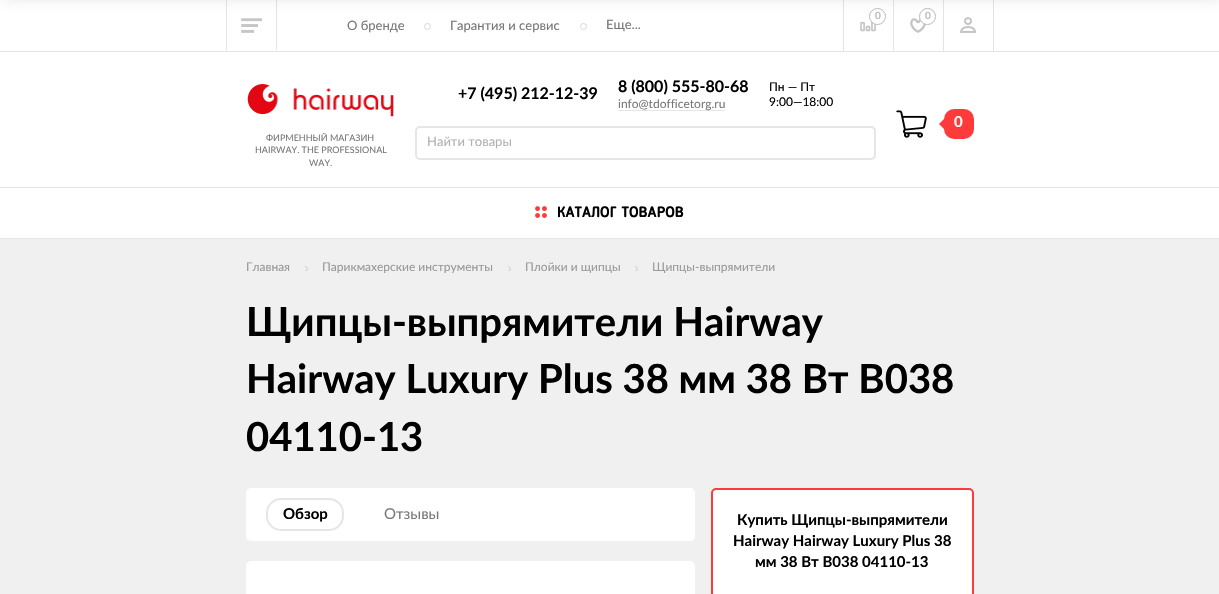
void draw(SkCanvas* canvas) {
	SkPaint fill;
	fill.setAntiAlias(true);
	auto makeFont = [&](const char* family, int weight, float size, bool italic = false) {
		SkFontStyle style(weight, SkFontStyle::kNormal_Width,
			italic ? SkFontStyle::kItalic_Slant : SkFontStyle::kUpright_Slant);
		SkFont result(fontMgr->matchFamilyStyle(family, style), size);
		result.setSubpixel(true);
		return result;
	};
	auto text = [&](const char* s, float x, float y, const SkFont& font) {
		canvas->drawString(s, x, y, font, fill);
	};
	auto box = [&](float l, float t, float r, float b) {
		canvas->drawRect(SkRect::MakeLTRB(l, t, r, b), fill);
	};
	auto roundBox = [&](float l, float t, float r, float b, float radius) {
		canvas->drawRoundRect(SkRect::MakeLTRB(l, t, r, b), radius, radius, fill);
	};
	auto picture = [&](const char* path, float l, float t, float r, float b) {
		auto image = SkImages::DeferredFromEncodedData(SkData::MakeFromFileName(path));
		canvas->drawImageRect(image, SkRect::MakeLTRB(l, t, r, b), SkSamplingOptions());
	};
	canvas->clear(0xFFF0F0F0);
	fill.setColor(0xFFFFFFFF);
	box(0, 0, 1219, 51);
	fill.setColor(0xFFE5E5E5);
	box(0, 51, 1219, 52);
	box(993, 0, 994, 51);
	box(226, 0, 227, 51);
	box(276, 0, 277, 50);
	picture("image0.png", 241, 18, 262, 33);
	box(843, 0, 844, 51);
	picture("image1.png", 860, 21, 876, 32);
	fill.setColor(0xFFFFFFFF);
	canvas->drawCircle(877.5f, 16.5f, 8, fill);
	fill.setStyle(SkPaint::kStroke_Style);
	fill.setStrokeWidth(1);
	fill.setColor(0xFFBABABA);
	canvas->drawCircle(877.5f, 16.5f, 8, fill);
	fill.setStyle(SkPaint::kFill_Style);
	fill.setColor(0xFFE5E5E5);
	box(893, 0, 894, 51);
	picture("image2.png", 910, 18, 926, 33);
	fill.setColor(0xFFFFFFFF);
	canvas->drawCircle(927.5f, 16.5f, 8, fill);
	fill.setStyle(SkPaint::kStroke_Style);
	fill.setColor(0xFFBABABA);
	canvas->drawCircle(927.5f, 16.5f, 8, fill);
	fill.setStyle(SkPaint::kFill_Style);
	fill.setColor(0xFFE5E5E5);
	box(943, 0, 944, 51);
	picture("image3.png", 960, 17, 976, 33);
	fill.setStyle(SkPaint::kStroke_Style);
	fill.setColor(0xFFD7D7D7);
	canvas->drawCircle(427.5f, 26.5f, 3, fill);
	canvas->drawCircle(583.5f, 26.5f, 3, fill);
	fill.setStyle(SkPaint::kFill_Style);
	fill.setColor(0xFFFFFFFF);
	box(0, 52, 1219, 187);
	fill.setColor(0xFFE5E5E5);
	box(618, 110, 725, 111);
	fill.setStyle(SkPaint::kStroke_Style);
	fill.setStrokeWidth(2);
	fill.setColor(0xFFE6E6E6);
	canvas->drawRoundRect(SkRect::MakeLTRB(416, 127, 875, 159), 4, 4, fill);
	picture("image4.png", 896, 110, 927, 138);
	fill.setStyle(SkPaint::kFill_Style);
	fill.setColor(0xFFFE3A3A);
	roundBox(944, 109, 974, 139, 10);
	canvas->drawPath(SkPathBuilder().moveTo(946, 117).lineTo(946, 131).lineTo(939, 124).close().detach(), fill);
	picture("image5.png", 247, 84, 394, 117);
	fill.setColor(0xFFFFFFFF);
	box(0, 188, 1219, 238);
	fill.setColor(0xFFE5E5E5);
	box(0, 187, 1219, 188);
	box(0, 238, 1219, 239);
	picture("image6.png", 535, 206, 547, 218);
	fill.setColor(0x2E000000);
	fill.setMaskFilter(SkMaskFilter::MakeBlur(kNormal_SkBlurStyle, 8));
	canvas->drawRect(SkRect::MakeLTRB(3, -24, 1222, -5), fill);
	fill.setMaskFilter(nullptr);
	picture("image7.png", 305, 266, 308, 271);
	picture("image7.png", 508, 266, 511, 271);
	picture("image7.png", 635, 266, 638, 271);
	fill.setColor(0xFFFFFFFF);
	roundBox(246, 488, 695, 541, 5);
	fill.setStyle(SkPaint::kStroke_Style);
	fill.setColor(0xFFE5E5E5);
	canvas->drawRoundRect(SkRect::MakeLTRB(267, 499, 343, 530), 14, 14, fill);
	fill.setStyle(SkPaint::kFill_Style);
	fill.setColor(0xFFFFFFFF);
	roundBox(246, 561, 695, 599, 5);
	canvas->drawRoundRect(SkRect::MakeLTRB(712, 489, 973, 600), 4, 4, fill);
	fill.setStyle(SkPaint::kStroke_Style);
	fill.setColor(0xFFFE3A3A);
	canvas->drawRoundRect(SkRect::MakeLTRB(712, 489, 973, 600), 4, 4, fill);
	auto font1 = makeFont("Lato", 700, 10);
	fill.setStyle(SkPaint::kFill_Style);
	fill.setColor(0xFFBCBCBC);
	text("0", 875, 19, font1);
	text("0", 925, 19, font1);
	auto font2 = makeFont("Lato", 400, 13);
	fill.setColor(0xFF777777);
	text("О бренде", 347, 30, font2);
	text("Гарантия и сервис", 450, 30, font2);
	text("Еще...", 606, 29, font2);
	auto font3 = makeFont("Lato", 700, 16);
	fill.setColor(0xFF000000);
	text("+7 (495) 212-12-39", 458, 99, font3);
	text("8 (800) 555-80-68", 618, 92, font3);
	auto font4 = makeFont("Lato", 400, 12);
	fill.setColor(0xFF777777);
	text("info@tdofficetorg.ru", 618, 108, font4);
	fill.setColor(0xFF000000);
	text("Пн — Пт", 769, 91, font4);
	text("9:00—18:00", 769, 106, font4);
	fill.setColor(0xFFB2B2B2);
	text("Найти товары", 427, 146, font2);
	auto font5 = makeFont("Lato", 700, 15);
	fill.setColor(0xFFFFFFFF);
	text("0", 954, 127, font5);
	auto font6 = makeFont("Lato", 400, 9);
	fill.setColor(0xFF777777);
	text("ФИРМЕННЫЙ МАГАЗИН", 266, 141, font6);
	text("HAIRWAY. THE PROFESSIONAL", 255, 153, font6);
	text("WAY.", 309, 166, font6);
	auto font7 = makeFont("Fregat", 700, 15);
	fill.setColor(0xFF000000);
	text("КАТАЛОГ ТОВАРОВ", 557, 217, font7);
	fill.setColor(0xFF999999);
	text("Главная", 246, 271, font4);
	text("Парикмахерские инструменты", 322, 271, font4);
	text("Плойки и щипцы", 525, 271, font4);
	text("Щипцы-выпрямители", 652, 271, font4);
	auto font8 = makeFont("Lato", 700, 40);
	fill.setColor(0xFF000000);
	text("Щипцы-выпрямители Hairway", 246, 336, font8);
	text("Hairway Luxury Plus 38 мм 38 Вт B038", 246, 393, font8);
	text("04110-13", 246, 451, font8);
	text("Обзор", 283, 519, font5);
	auto font9 = makeFont("Lato", 400, 15);
	fill.setColor(0xFF777777);
	text("Отзывы", 384, 519, font9);
	fill.setColor(0xFF000000);
	text("Купить Щипцы-выпрямители", 737, 525, font5);
	text("Hairway Hairway Luxury Plus 38", 733, 546, font5);
	text("мм 38 Вт B038 04110-13", 755, 567, font5);
}
